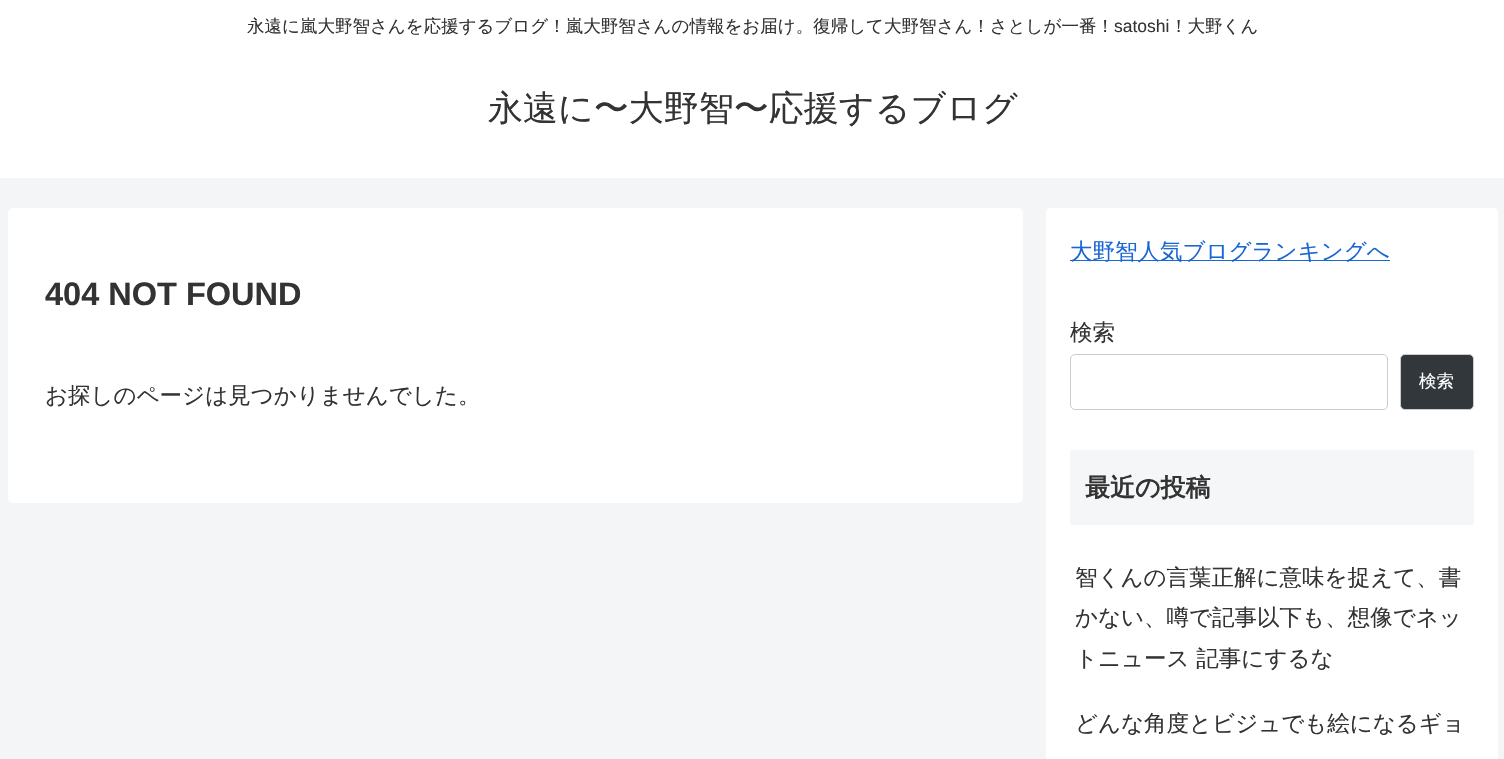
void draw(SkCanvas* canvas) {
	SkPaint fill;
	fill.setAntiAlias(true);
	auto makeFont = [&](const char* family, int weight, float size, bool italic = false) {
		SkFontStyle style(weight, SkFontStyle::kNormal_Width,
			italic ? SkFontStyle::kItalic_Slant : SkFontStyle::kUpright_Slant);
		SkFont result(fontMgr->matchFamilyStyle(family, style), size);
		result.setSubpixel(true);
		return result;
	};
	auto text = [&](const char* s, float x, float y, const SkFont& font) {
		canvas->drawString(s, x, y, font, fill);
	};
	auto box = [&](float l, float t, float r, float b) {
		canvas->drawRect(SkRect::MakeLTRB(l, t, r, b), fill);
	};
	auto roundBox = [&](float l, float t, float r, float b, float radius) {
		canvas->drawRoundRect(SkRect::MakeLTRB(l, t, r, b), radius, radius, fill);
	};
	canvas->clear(0xFFF4F5F7);
	fill.setColor(0xFFFFFFFF);
	box(0, 0, 1504, 178);
	roundBox(8, 208, 1023, 503, 5);
	roundBox(1046, 208, 1498, 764, 5);
	fill.setColor(0xFF1967D2);
	box(1070, 260, 1390, 261);
	fill.setStyle(SkPaint::kStroke_Style);
	fill.setStrokeWidth(1);
	fill.setColor(0xFFCCCCCC);
	canvas->drawRoundRect(SkRect::MakeLTRB(1070.5f, 354.5f, 1387.5f, 409.5f), 4.5f, 4.5f, fill);
	fill.setStyle(SkPaint::kFill_Style);
	fill.setColor(0xFF32373C);
	canvas->drawRoundRect(SkRect::MakeLTRB(1400.5f, 354.5f, 1473.5f, 409.5f), 4.5f, 4.5f, fill);
	fill.setStyle(SkPaint::kStroke_Style);
	fill.setColor(0xFFCCCCCC);
	canvas->drawRoundRect(SkRect::MakeLTRB(1400.5f, 354.5f, 1473.5f, 409.5f), 4.5f, 4.5f, fill);
	fill.setStyle(SkPaint::kFill_Style);
	fill.setColor(0xFFF5F6F7);
	roundBox(1070, 450, 1474, 525, 2.5f);
	auto font1 = makeFont("WenQuanYi Zen Hei", 500, 17.5f);
	fill.setColor(0xFF333333);
	text("永遠に嵐大野智さんを応援するブログ！嵐大野智さんの情報をお届け。復帰して大野智さん！さとしが一番！", 247, 32, font1);
	auto font2 = makeFont("Liberation Sans", 400, 17.5f);
	text("satoshi", 1114, 32, font2);
	text("！大野くん", 1170, 32, font1);
	auto font3 = makeFont("WenQuanYi Zen Hei", 500, 35);
	text("永遠に〜大野智〜応援するブログ", 488, 120, font3);
	auto font4 = makeFont("Liberation Sans", 700, 32.5f);
	text("404 NOT FOUND", 45, 305, font4);
	auto font5 = makeFont("WenQuanYi Zen Hei", 500, 22.5f);
	text("お探しのページは見つかりませんでした。", 45, 403, font5);
	fill.setColor(0xFF1967D2);
	text("大野智人気ブログランキングへ", 1070, 259, font5);
	fill.setColor(0xFF333333);
	text("検索", 1070, 340, font5);
	fill.setColor(0xFFFFFFFF);
	text("検索", 1419, 387, font1);
	auto font6 = makeFont("WenQuanYi Zen Hei", 700, 25);
	fill.setColor(0xFF333333);
	text("最近の投稿", 1085, 496, font6);
	text("智くんの言葉正解に意味を捉えて、書", 1075, 585, font5);
	text("かない、噂で記事以下も、想像でネッ", 1075, 625, font5);
	text("トニュース 記事にするな", 1075, 666, font5);
	text("どんな角度とビジュでも絵になるギョ", 1075, 731, font5);
}
